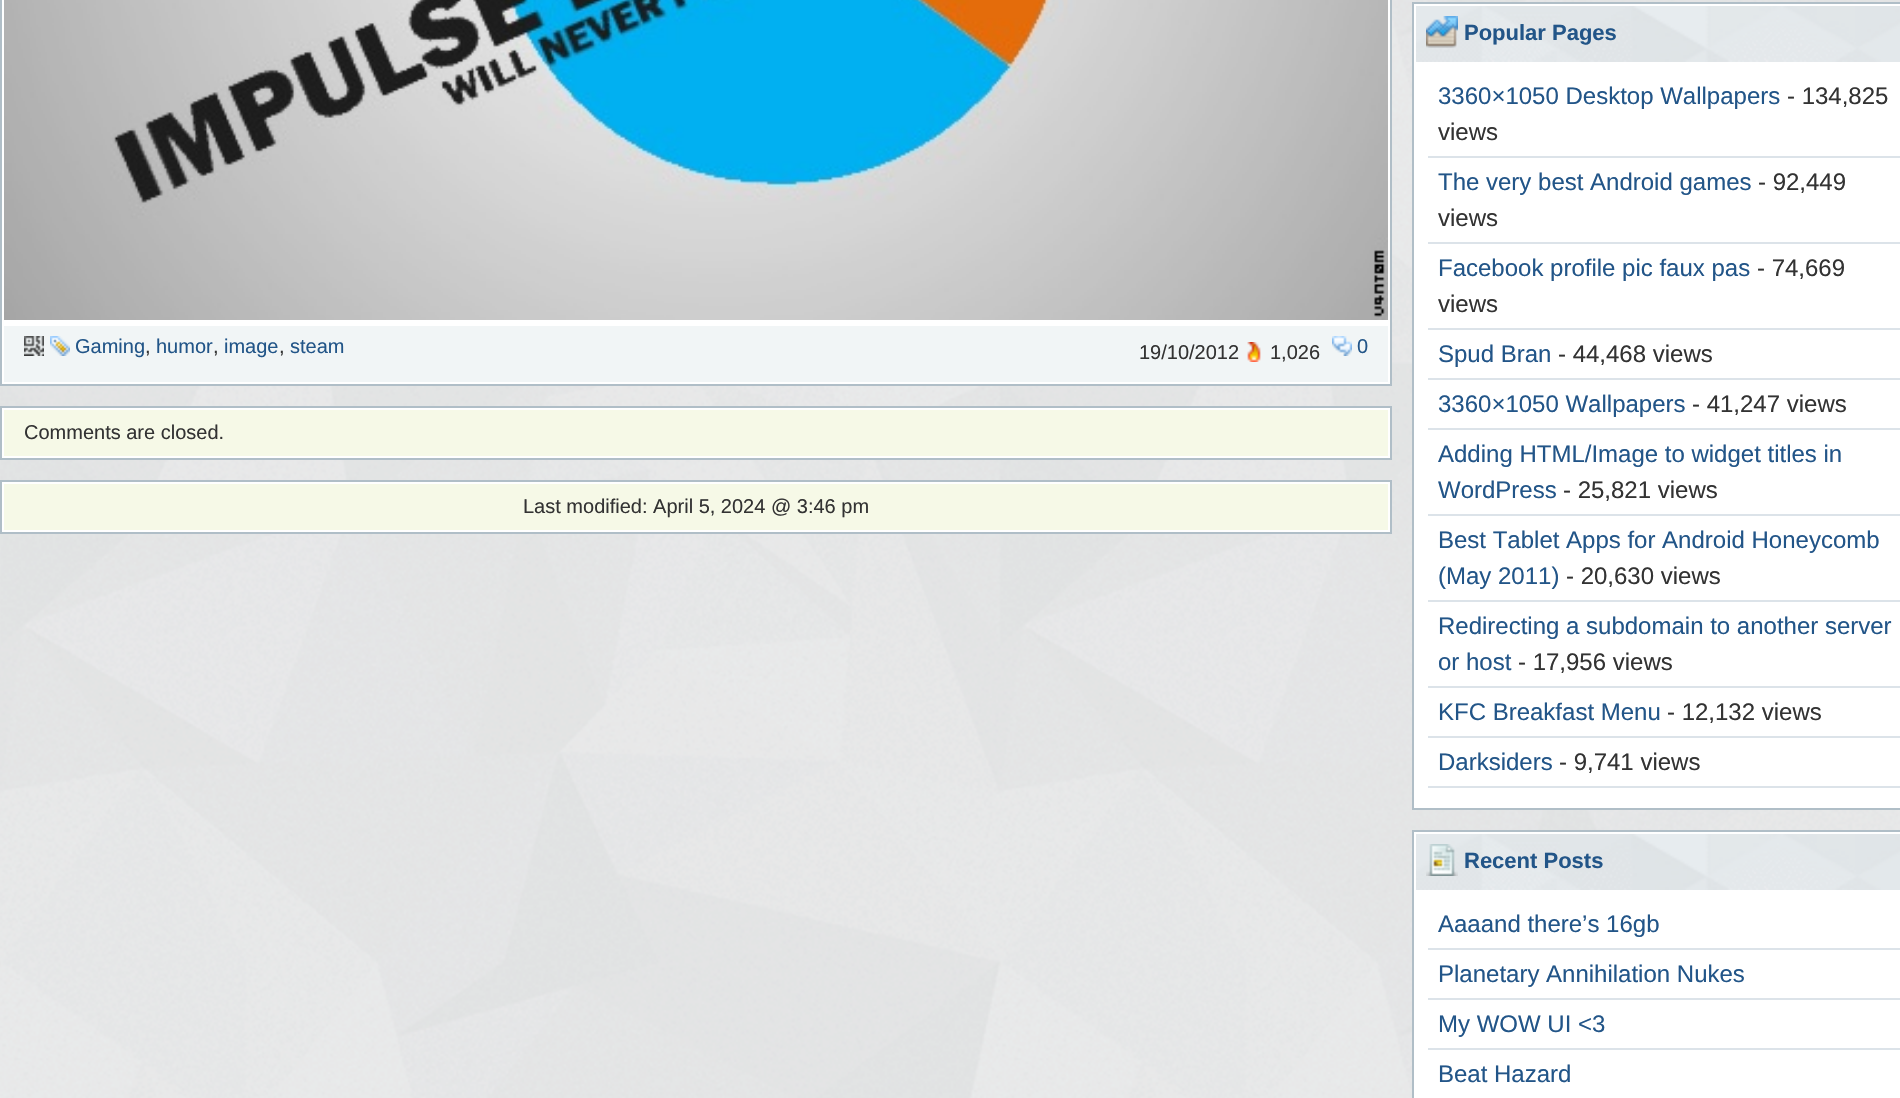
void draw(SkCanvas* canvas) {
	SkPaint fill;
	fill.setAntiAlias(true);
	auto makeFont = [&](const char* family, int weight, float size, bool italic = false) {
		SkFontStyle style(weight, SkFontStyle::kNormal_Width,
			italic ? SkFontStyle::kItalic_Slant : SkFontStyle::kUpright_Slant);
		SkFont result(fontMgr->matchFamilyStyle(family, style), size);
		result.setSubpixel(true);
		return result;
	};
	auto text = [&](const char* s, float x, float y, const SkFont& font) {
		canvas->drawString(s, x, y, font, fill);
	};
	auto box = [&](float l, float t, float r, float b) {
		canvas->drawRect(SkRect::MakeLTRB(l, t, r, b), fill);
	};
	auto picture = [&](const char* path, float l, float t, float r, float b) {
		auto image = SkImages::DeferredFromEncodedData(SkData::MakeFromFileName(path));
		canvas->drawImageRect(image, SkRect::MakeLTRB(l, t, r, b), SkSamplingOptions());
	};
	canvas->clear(0xFFFFFFFF);
	picture("image0.png", 0, 0, 1900, 1098);
	fill.setStyle(SkPaint::kStroke_Style);
	fill.setStrokeWidth(2);
	fill.setColor(0xFFB0BEC7);
	canvas->drawRect(SkRect::MakeLTRB(1, -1, 1391, 385), fill);
	fill.setStyle(SkPaint::kFill_Style);
	fill.setColor(0xFFFFFFFF);
	box(2, 0, 1390, 324);
	picture("image1.png", 4, 0, 1388, 320);
	fill.setColor(0xFFF1F5F6);
	canvas->drawRect(SkRect::MakeLTRB(3, 325, 1389, 383), fill);
	fill.setStyle(SkPaint::kStroke_Style);
	fill.setColor(0xFFFFFFFF);
	canvas->drawRect(SkRect::MakeLTRB(3, 325, 1389, 383), fill);
	picture("image2.png", 24, 336, 44, 356);
	picture("image3.png", 50, 336, 70, 356);
	picture("image4.png", 1247, 342, 1261, 362);
	picture("image5.png", 1332, 336, 1352, 356);
	fill.setStyle(SkPaint::kFill_Style);
	canvas->drawRect(SkRect::MakeLTRB(1, 407, 1391, 459), fill);
	fill.setStyle(SkPaint::kStroke_Style);
	fill.setColor(0xFFB0BEC7);
	canvas->drawRect(SkRect::MakeLTRB(1, 407, 1391, 459), fill);
	fill.setStyle(SkPaint::kFill_Style);
	fill.setColor(0xFFF6F9E7);
	box(4, 410, 1388, 456);
	fill.setColor(0xFFFFFFFF);
	canvas->drawRect(SkRect::MakeLTRB(1, 481, 1391, 533), fill);
	fill.setStyle(SkPaint::kStroke_Style);
	fill.setColor(0xFFB0BEC7);
	canvas->drawRect(SkRect::MakeLTRB(1, 481, 1391, 533), fill);
	fill.setStyle(SkPaint::kFill_Style);
	fill.setColor(0xFFF6F9E7);
	box(4, 484, 1388, 530);
	fill.setColor(0xFFFFFFFF);
	canvas->drawRect(SkRect::MakeLTRB(1413, 3, 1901, 809), fill);
	fill.setStyle(SkPaint::kStroke_Style);
	fill.setColor(0xFFB0BEC7);
	canvas->drawRect(SkRect::MakeLTRB(1413, 3, 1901, 809), fill);
	picture("image6.png", 1416, 6, 1900, 62);
	picture("image7.png", 1426, 16, 1458, 48);
	fill.setStyle(SkPaint::kFill_Style);
	fill.setColor(0xFFDCE3E9);
	box(1428, 156, 1900, 158);
	box(1428, 242, 1900, 244);
	box(1428, 328, 1900, 330);
	box(1428, 378, 1900, 380);
	box(1428, 428, 1900, 430);
	box(1428, 514, 1900, 516);
	box(1428, 600, 1900, 602);
	box(1428, 686, 1900, 688);
	box(1428, 736, 1900, 738);
	box(1428, 786, 1900, 788);
	fill.setColor(0xFFFFFFFF);
	canvas->drawRect(SkRect::MakeLTRB(1413, 831, 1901, 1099), fill);
	fill.setStyle(SkPaint::kStroke_Style);
	fill.setColor(0xFFB0BEC7);
	canvas->drawRect(SkRect::MakeLTRB(1413, 831, 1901, 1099), fill);
	picture("image6.png", 1416, 834, 1900, 890);
	picture("image8.png", 1426, 844, 1458, 876);
	fill.setStyle(SkPaint::kFill_Style);
	fill.setColor(0xFFDCE3E9);
	box(1428, 948, 1900, 950);
	box(1428, 998, 1900, 1000);
	box(1428, 1048, 1900, 1050);
	auto font1 = makeFont("Liberation Sans", 400, 20);
	fill.setColor(0xFF225588);
	text("Gaming", 75, 353, font1);
	fill.setColor(0xFF333333);
	text(",", 145, 353, font1);
	fill.setColor(0xFF225588);
	text("humor", 156, 353, font1);
	fill.setColor(0xFF333333);
	text(",", 213, 353, font1);
	fill.setColor(0xFF225588);
	text("image", 224, 353, font1);
	fill.setColor(0xFF333333);
	text(",", 279, 353, font1);
	fill.setColor(0xFF225588);
	text("steam", 290, 353, font1);
	fill.setColor(0xFF333333);
	text("19/10/2012", 1139, 359, font1);
	text("1,026", 1270, 359, font1);
	fill.setColor(0xFF225588);
	text("0", 1357, 353, font1);
	fill.setColor(0xFF333333);
	text("Comments are closed.", 24, 439, font1);
	text("Last modified: April 5, 2024 @ 3:46 pm", 523, 513, font1);
	auto font2 = makeFont("Liberation Sans", 700, 22);
	fill.setColor(0xFF225588);
	text("Popular Pages", 1464, 40, font2);
	auto font3 = makeFont("Liberation Sans", 400, 24);
	text("3360×1050 Desktop Wallpapers", 1438, 104, font3);
	fill.setColor(0xFF333333);
	text("- 134,825", 1787, 104, font3);
	text("views", 1438, 140, font3);
	fill.setColor(0xFF225588);
	text("The very best Android games", 1438, 190, font3);
	fill.setColor(0xFF333333);
	text("- 92,449", 1758, 190, font3);
	text("views", 1438, 226, font3);
	fill.setColor(0xFF225588);
	text("Facebook profile pic faux pas", 1438, 276, font3);
	fill.setColor(0xFF333333);
	text("- 74,669", 1757, 276, font3);
	text("views", 1438, 312, font3);
	fill.setColor(0xFF225588);
	text("Spud Bran", 1438, 362, font3);
	fill.setColor(0xFF333333);
	text("- 44,468 views", 1558, 362, font3);
	fill.setColor(0xFF225588);
	text("3360×1050 Wallpapers", 1438, 412, font3);
	fill.setColor(0xFF333333);
	text("- 41,247 views", 1692, 412, font3);
	fill.setColor(0xFF225588);
	text("Adding HTML/Image to widget titles in", 1438, 462, font3);
	text("WordPress", 1438, 498, font3);
	fill.setColor(0xFF333333);
	text("- 25,821 views", 1563, 498, font3);
	fill.setColor(0xFF225588);
	text("Best Tablet Apps for Android Honeycomb", 1438, 548, font3);
	text("(May 2011)", 1438, 584, font3);
	fill.setColor(0xFF333333);
	text("- 20,630 views", 1566, 584, font3);
	fill.setColor(0xFF225588);
	text("Redirecting a subdomain to another server", 1438, 634, font3);
	text("or host", 1438, 670, font3);
	fill.setColor(0xFF333333);
	text("- 17,956 views", 1518, 670, font3);
	fill.setColor(0xFF225588);
	text("KFC Breakfast Menu", 1438, 720, font3);
	fill.setColor(0xFF333333);
	text("- 12,132 views", 1667, 720, font3);
	fill.setColor(0xFF225588);
	text("Darksiders", 1438, 770, font3);
	fill.setColor(0xFF333333);
	text("- 9,741 views", 1559, 770, font3);
	fill.setColor(0xFF225588);
	text("Recent Posts", 1464, 868, font2);
	text("Aaaand there’s 16gb", 1438, 932, font3);
	text("Planetary Annihilation Nukes", 1438, 982, font3);
	text("My WOW UI <3", 1438, 1032, font3);
	text("Beat Hazard", 1438, 1082, font3);
}
